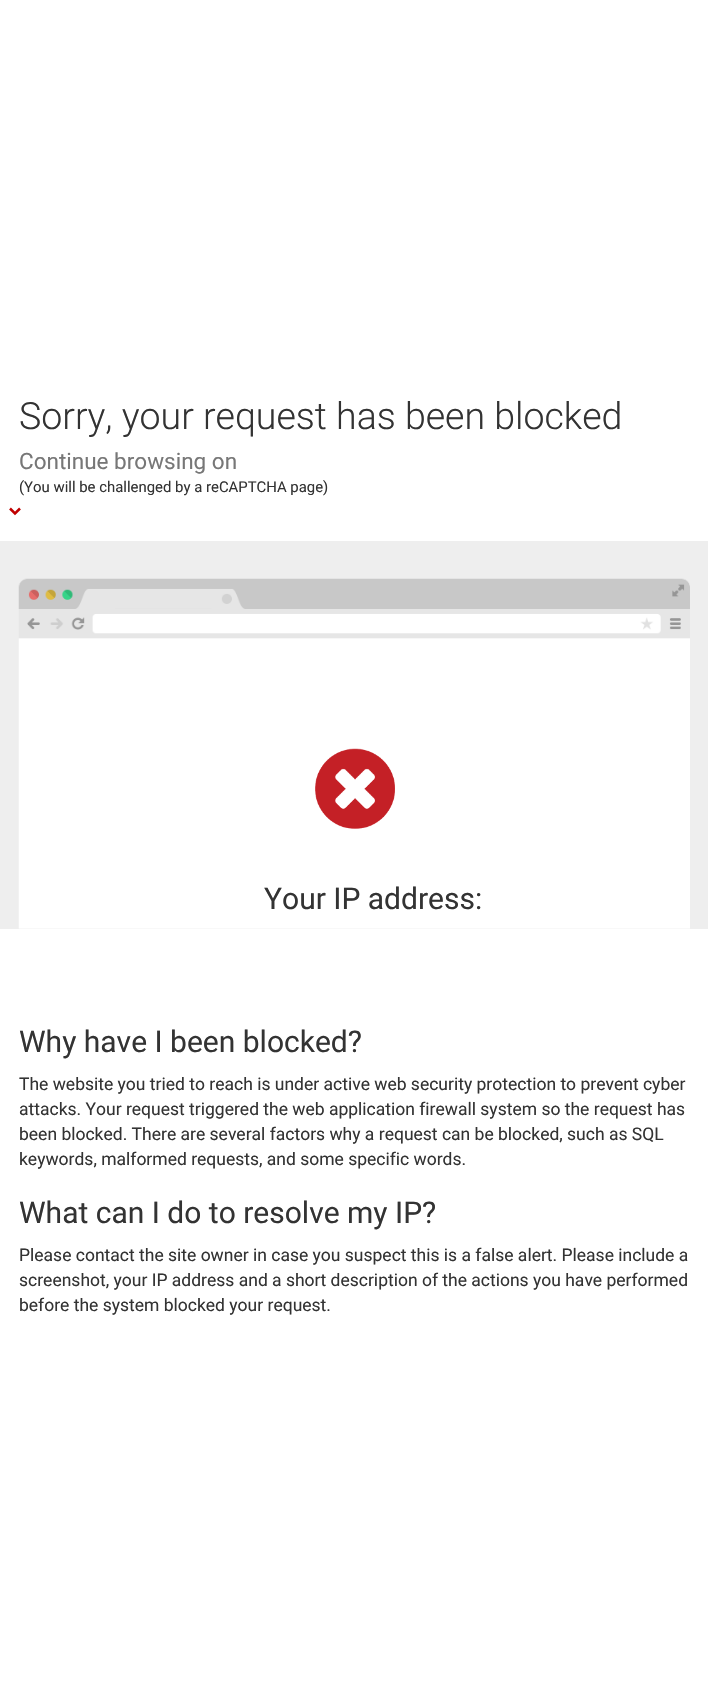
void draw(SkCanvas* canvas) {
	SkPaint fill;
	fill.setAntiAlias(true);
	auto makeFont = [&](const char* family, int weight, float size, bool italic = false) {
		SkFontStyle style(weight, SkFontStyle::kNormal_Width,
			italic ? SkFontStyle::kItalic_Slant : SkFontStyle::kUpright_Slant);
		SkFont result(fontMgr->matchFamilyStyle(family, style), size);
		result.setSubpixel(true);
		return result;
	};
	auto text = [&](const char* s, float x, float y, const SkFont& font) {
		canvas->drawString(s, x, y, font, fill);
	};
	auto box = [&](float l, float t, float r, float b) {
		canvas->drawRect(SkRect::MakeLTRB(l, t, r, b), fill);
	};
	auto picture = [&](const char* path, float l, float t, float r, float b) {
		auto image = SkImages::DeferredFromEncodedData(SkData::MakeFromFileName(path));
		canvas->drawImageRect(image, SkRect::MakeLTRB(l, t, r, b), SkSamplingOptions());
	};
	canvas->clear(0xFFFFFFFF);
	fill.setStyle(SkPaint::kStroke_Style);
	fill.setStrokeWidth(2.5f);
	fill.setColor(0xFFC00000);
	canvas->drawPath(SkPathBuilder().moveTo(10, 508.5f).lineTo(15, 513.5f).lineTo(20, 508.5f).detach(), fill);
	fill.setStyle(SkPaint::kFill_Style);
	fill.setColor(0xFFEEEEEE);
	box(0, 541, 708, 929);
	picture("image0.png", 18, 578, 690, 929);
	picture("image1.png", 315, 748, 395, 829);
	auto font1 = makeFont("Roboto", 300, 37.5f);
	fill.setColor(0xFF333333);
	text("Sorry, your request has been blocked", 19, 429, font1);
	auto font2 = makeFont("Roboto", 400, 22.5f);
	fill.setColor(0xFF777777);
	text("Continue browsing on", 19, 469, font2);
	auto font3 = makeFont("Roboto", 400, 14.9f);
	fill.setColor(0xFF333333);
	text("(You will be challenged by a reCAPTCHA page)", 19, 492, font3);
	auto font4 = makeFont("Roboto", 400, 30);
	text("Your IP address:", 264, 909, font4);
	text("Why have I been blocked?", 19, 1052, font4);
	auto font5 = makeFont("Roboto", 400, 17.5f);
	text("The website you tried to reach is under active web security protection to prevent cyber", 19, 1090, font5);
	text("attacks. Your request triggered the web application firewall system so the request has", 19, 1115, font5);
	text("been blocked. There are several factors why a request can be blocked, such as SQL", 19, 1140, font5);
	text("keywords, malformed requests, and some specific words.", 19, 1165, font5);
	text("What can I do to resolve my IP?", 19, 1223, font4);
	text("Please contact the site owner in case you suspect this is a false alert. Please include a", 19, 1261, font5);
	text("screenshot, your IP address and a short description of the actions you have performed", 19, 1286, font5);
	text("before the system blocked your request.", 19, 1311, font5);
}
